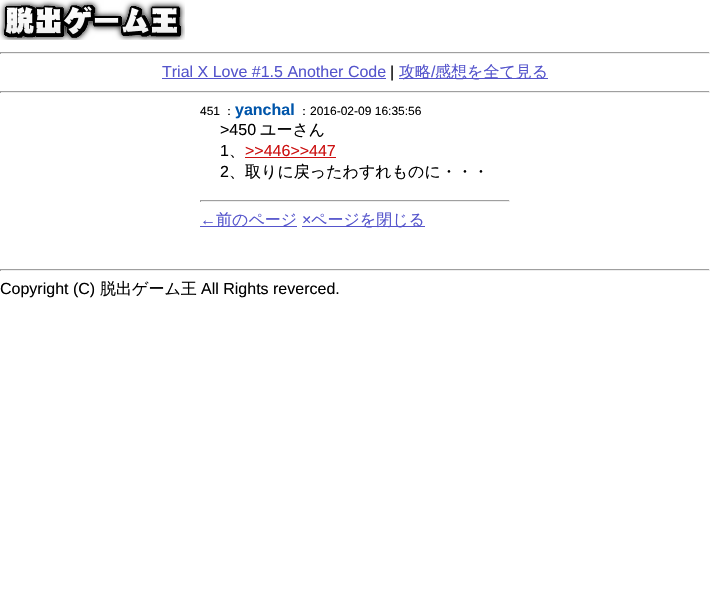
void draw(SkCanvas* canvas) {
	SkPaint fill;
	fill.setAntiAlias(true);
	auto makeFont = [&](const char* family, int weight, float size, bool italic = false) {
		SkFontStyle style(weight, SkFontStyle::kNormal_Width,
			italic ? SkFontStyle::kItalic_Slant : SkFontStyle::kUpright_Slant);
		SkFont result(fontMgr->matchFamilyStyle(family, style), size);
		result.setSubpixel(true);
		return result;
	};
	auto text = [&](const char* s, float x, float y, const SkFont& font) {
		canvas->drawString(s, x, y, font, fill);
	};
	auto box = [&](float l, float t, float r, float b) {
		canvas->drawRect(SkRect::MakeLTRB(l, t, r, b), fill);
	};
	auto picture = [&](const char* path, float l, float t, float r, float b) {
		auto image = SkImages::DeferredFromEncodedData(SkData::MakeFromFileName(path));
		canvas->drawImageRect(image, SkRect::MakeLTRB(l, t, r, b), SkSamplingOptions());
	};
	canvas->clear(0xFFFFFFFF);
	picture("image0.png", 0, 0, 185, 40);
	fill.setColor(0xFF9F9F9F);
	box(0, 52, 710, 53);
	fill.setColor(0xFFEEEEEE);
	box(709, 52, 710, 54);
	box(0, 53, 710, 54);
	fill.setColor(0xFF9F9F9F);
	box(0, 52, 1, 54);
	fill.setColor(0xFF5555CC);
	box(162, 78, 386, 79);
	box(399, 78, 548, 79);
	fill.setColor(0xFF9F9F9F);
	box(0, 91, 710, 92);
	fill.setColor(0xFFEEEEEE);
	box(709, 91, 710, 93);
	box(0, 92, 710, 93);
	fill.setColor(0xFF9F9F9F);
	box(0, 91, 1, 93);
	fill.setColor(0xFFCC1111);
	box(245, 157, 336, 158);
	fill.setColor(0xFF9F9F9F);
	box(200, 200, 510, 201);
	fill.setColor(0xFFEEEEEE);
	box(509, 200, 510, 202);
	box(200, 201, 510, 202);
	fill.setColor(0xFF9F9F9F);
	box(200, 200, 201, 202);
	fill.setColor(0xFF5555CC);
	box(200, 226, 297, 227);
	box(302, 226, 425, 227);
	fill.setColor(0xFF9F9F9F);
	box(0, 269, 710, 270);
	fill.setColor(0xFFEEEEEE);
	box(709, 269, 710, 271);
	box(0, 270, 710, 271);
	fill.setColor(0xFF9F9F9F);
	box(0, 269, 1, 271);
	auto font1 = makeFont("Liberation Sans", 400, 16);
	fill.setColor(0xFF5555CC);
	text("Trial X Love #1.5 Another Code", 162, 77, font1);
	fill.setColor(0xFF000000);
	text("|", 390, 77, font1);
	auto font2 = makeFont("WenQuanYi Zen Hei", 500, 16);
	fill.setColor(0xFF5555CC);
	text("攻略", 399, 77, font2);
	text("/", 431, 77, font1);
	text("感想を全て見る", 435, 77, font2);
	auto font3 = makeFont("Liberation Sans", 400, 12);
	fill.setColor(0xFF000000);
	text("451", 200, 115, font3);
	auto font4 = makeFont("WenQuanYi Zen Hei", 500, 12);
	text("：", 223, 115, font4);
	auto font5 = makeFont("Liberation Sans", 700, 16);
	fill.setColor(0xFF0055AA);
	text("yanchal", 235, 115, font5);
	fill.setColor(0xFF000000);
	text("：", 298, 115, font4);
	text("2016-02-09 16:35:56", 310, 115, font3);
	text(">450", 220, 135, font1);
	text("ユーさん", 260, 135, font2);
	text("1", 220, 156, font1);
	text("、", 229, 156, font2);
	fill.setColor(0xFFCC1111);
	text(">>446>>447", 245, 156, font1);
	fill.setColor(0xFF000000);
	text("2", 220, 177, font1);
	text("、取りに戻ったわすれものに・・・", 229, 177, font2);
	fill.setColor(0xFF5555CC);
	text("←", 200, 225, font1);
	text("前のページ", 216, 225, font2);
	text("×", 302, 225, font1);
	text("ページを閉じる", 311, 225, font2);
	fill.setColor(0xFF000000);
	text("Copyright (C)", 0, 294, font1);
	text("脱出ゲーム王", 100, 294, font2);
	text("All Rights reverced.", 201, 294, font1);
}
